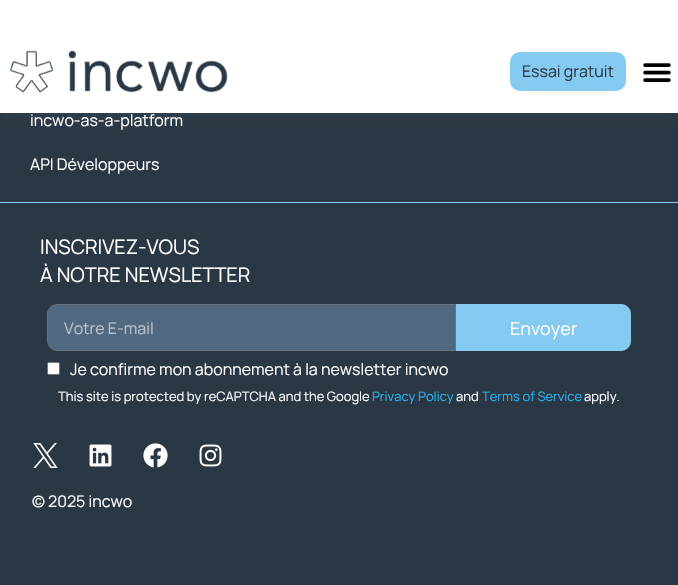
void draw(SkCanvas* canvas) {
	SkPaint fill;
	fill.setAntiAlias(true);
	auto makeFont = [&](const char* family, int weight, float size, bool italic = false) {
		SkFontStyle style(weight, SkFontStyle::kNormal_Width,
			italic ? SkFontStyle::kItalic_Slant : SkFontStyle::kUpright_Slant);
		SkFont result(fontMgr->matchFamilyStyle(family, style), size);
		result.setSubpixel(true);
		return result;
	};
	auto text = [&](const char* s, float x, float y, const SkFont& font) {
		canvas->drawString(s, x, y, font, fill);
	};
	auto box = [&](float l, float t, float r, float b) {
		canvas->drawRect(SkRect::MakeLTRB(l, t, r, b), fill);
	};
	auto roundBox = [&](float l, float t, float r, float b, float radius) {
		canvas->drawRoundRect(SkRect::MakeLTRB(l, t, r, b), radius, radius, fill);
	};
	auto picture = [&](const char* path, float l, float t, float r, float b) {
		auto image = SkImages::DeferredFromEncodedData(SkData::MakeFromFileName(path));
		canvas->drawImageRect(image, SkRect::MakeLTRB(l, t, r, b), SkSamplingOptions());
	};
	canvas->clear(0xFF2A3845);
	fill.setColor(0x3350697F);
	fill.setMaskFilter(SkMaskFilter::MakeBlur(kNormal_SkBlurStyle, 5));
	canvas->drawRect(SkRect::MakeLTRB(4, 10, 674, 115), fill);
	fill.setMaskFilter(nullptr);
	fill.setColor(0xFFFFFFFF);
	box(0, 0, 678, 113);
	picture("image0.png", 10, 50, 228, 93);
	fill.setColor(0xFF85CAF1);
	roundBox(510, 52, 626, 91, 10);
	picture("image1.png", 643, 63, 671, 82);
	box(0, 202, 678, 203);
	fill.setColor(0xFF506980);
	canvas->drawPath(SkPathBuilder().moveTo(57, 304.5f).lineTo(455.5f, 304.5f).lineTo(455.5f, 350.5f).lineTo(57, 350.5f).cubicTo(52, 350.5f, 47.5f, 346, 47.5f, 341).lineTo(47.5f, 314).cubicTo(47.5f, 309, 52, 304.5f, 57, 304.5f).close().detach(), fill);
	fill.setStyle(SkPaint::kStroke_Style);
	fill.setStrokeWidth(1);
	fill.setColor(0xFF69727D);
	canvas->drawPath(SkPathBuilder().moveTo(57, 304.5f).lineTo(455.5f, 304.5f).lineTo(455.5f, 350.5f).lineTo(57, 350.5f).cubicTo(52, 350.5f, 47.5f, 346, 47.5f, 341).lineTo(47.5f, 314).cubicTo(47.5f, 309, 52, 304.5f, 57, 304.5f).close().detach(), fill);
	fill.setStyle(SkPaint::kFill_Style);
	fill.setColor(0xFF85CAF1);
	canvas->drawPath(SkPathBuilder().moveTo(456, 304).lineTo(621, 304).cubicTo(626.5f, 304, 631, 308.5f, 631, 314).lineTo(631, 341).cubicTo(631, 346.5f, 626.5f, 351, 621, 351).lineTo(456, 351).close().detach(), fill);
	fill.setColor(0xFFFFFFFF);
	canvas->drawRoundRect(SkRect::MakeLTRB(47.5f, 362.5f, 59.5f, 374.5f), 1.5f, 1.5f, fill);
	fill.setStyle(SkPaint::kStroke_Style);
	fill.setColor(0xFF767676);
	canvas->drawRoundRect(SkRect::MakeLTRB(47.5f, 362.5f, 59.5f, 374.5f), 1.5f, 1.5f, fill);
	picture("image2.png", 33, 443, 58, 468);
	picture("image3.png", 89, 444, 112, 467);
	picture("image4.png", 143, 443, 168, 468);
	picture("image5.png", 199, 444, 222, 467);
	auto font1 = makeFont("Manrope", 400, 16);
	fill.setStyle(SkPaint::kFill_Style);
	fill.setColor(0xFF2A3845);
	text("Essai gratuit", 522, 77, font1);
	fill.setColor(0xFFFFFFFF);
	text("incwo-as-a-platform", 30, 126, font1);
	text("API Développeurs", 30, 170, font1);
	auto font2 = makeFont("Manrope", 400, 20);
	text("INSCRIVEZ-VOUS", 40, 254, font2);
	text("À NOTRE NEWSLETTER", 40, 282, font2);
	fill.setColor(0xFFB9C3CC);
	text("Votre E-mail", 64, 334, font1);
	auto font3 = makeFont("Manrope", 400, 18);
	fill.setColor(0xFFFFFFFF);
	text("Envoyer", 510, 335, font3);
	text("Je confirme mon abonnement à la newsletter incwo", 70, 375, font1);
	auto font4 = makeFont("Manrope", 400, 13);
	text("This site is protected by reCAPTCHA and the Google", 58, 401, font4);
	fill.setColor(0xFF2EB4EF);
	text("Privacy Policy", 372, 401, font4);
	fill.setColor(0xFFFFFFFF);
	text("and", 456, 401, font4);
	fill.setColor(0xFF2EB4EF);
	text("Terms of Service", 482, 401, font4);
	fill.setColor(0xFFFFFFFF);
	text("apply.", 584, 401, font4);
	text("© 2025 incwo", 32, 507, font1);
}
